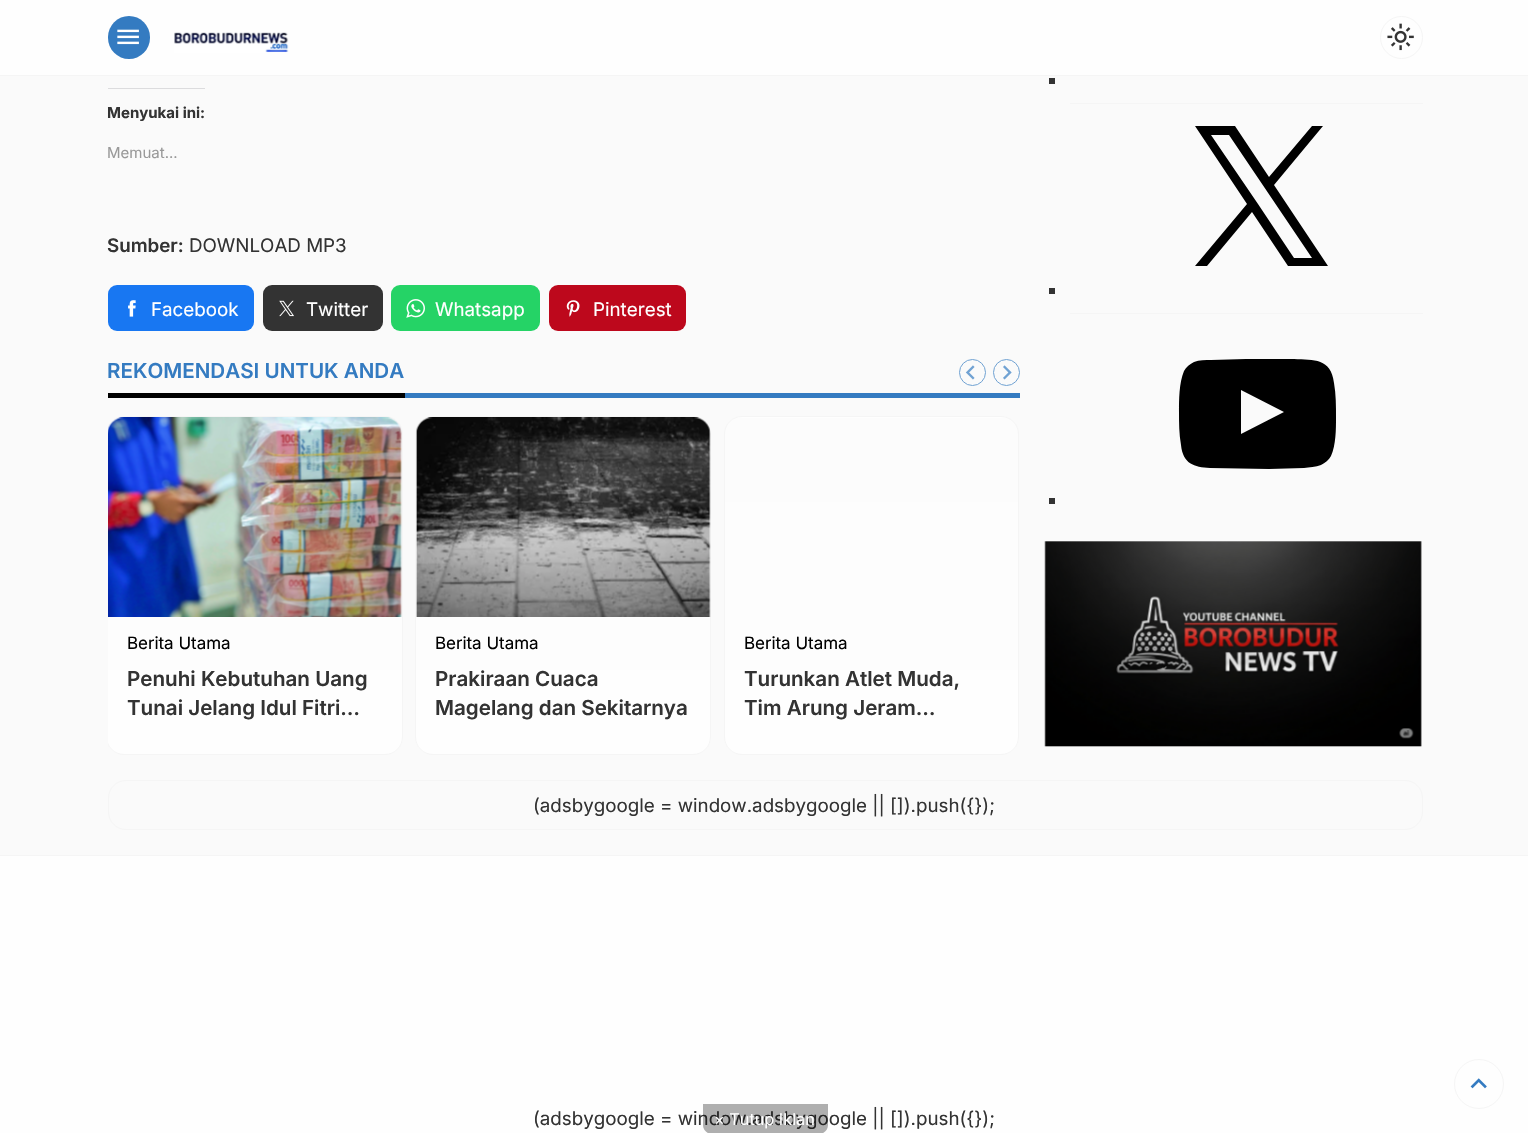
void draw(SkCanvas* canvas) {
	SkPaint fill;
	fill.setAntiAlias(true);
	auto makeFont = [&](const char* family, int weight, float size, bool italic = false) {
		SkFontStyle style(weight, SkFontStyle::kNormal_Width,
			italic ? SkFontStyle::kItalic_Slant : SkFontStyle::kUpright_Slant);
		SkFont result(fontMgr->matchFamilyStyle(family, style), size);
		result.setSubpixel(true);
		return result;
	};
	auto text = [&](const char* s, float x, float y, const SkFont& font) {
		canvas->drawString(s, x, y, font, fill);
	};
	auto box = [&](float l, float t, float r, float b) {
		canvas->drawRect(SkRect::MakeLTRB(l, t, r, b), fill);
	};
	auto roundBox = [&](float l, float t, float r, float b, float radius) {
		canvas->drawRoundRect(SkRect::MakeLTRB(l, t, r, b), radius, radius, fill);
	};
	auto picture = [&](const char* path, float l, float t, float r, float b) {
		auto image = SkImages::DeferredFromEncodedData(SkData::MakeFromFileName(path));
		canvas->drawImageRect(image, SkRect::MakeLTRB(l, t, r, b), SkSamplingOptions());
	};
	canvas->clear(0xFFFAFAFA);
	fill.setColor(0xFFFEFEFE);
	box(0, 0, 1528, 75);
	fill.setColor(0xFFF5F5F5);
	box(0, 75, 1528, 76);
	fill.setColor(0xFF347BC1);
	roundBox(108, 16, 150, 59, 21);
	picture("image0.png", 117, 29, 139, 45);
	picture("image1.png", 174, 32, 289, 53);
	fill.setStyle(SkPaint::kStroke_Style);
	fill.setStrokeWidth(1);
	fill.setColor(0xFFF5F5F5);
	canvas->drawCircle(1401.5f, 37.5f, 21, fill);
	picture("image2.png", 1387, 23, 1414, 51);
	fill.setStyle(SkPaint::kFill_Style);
	fill.setColor(0xFFDCDCDE);
	box(108, 88, 205, 89);
	fill.setColor(0xFF1877F2);
	roundBox(108, 285, 254, 331, 9);
	picture("image3.png", 128, 300, 136, 317);
	fill.setColor(0xFF333333);
	roundBox(263, 285, 383, 331, 9);
	picture("image4.png", 279, 300, 294, 317);
	fill.setColor(0xFF25D366);
	roundBox(391, 285, 540, 331, 9);
	picture("image5.png", 406, 299, 425, 318);
	fill.setColor(0xFFBD081C);
	roundBox(549, 285, 686, 331, 9);
	picture("image6.png", 566, 300, 580, 317);
	fill.setColor(0xFF000000);
	box(108, 393, 405, 398);
	fill.setColor(0xFF347BC1);
	box(405, 393, 1020, 398);
	fill.setStyle(SkPaint::kStroke_Style);
	fill.setColor(0xFF6FA1D2);
	canvas->drawCircle(972.5f, 372.5f, 13, fill);
	picture("image7.png", 965, 365, 975, 380);
	canvas->drawCircle(1006.5f, 372.5f, 13, fill);
	picture("image8.png", 1003, 365, 1012, 380);
	canvas->save();
	canvas->clipPath(SkPathBuilder().moveTo(124, 416).lineTo(385, 416).cubicTo(395, 416, 403, 424, 403, 434).lineTo(403, 737).cubicTo(403, 747, 395, 755, 385, 755).lineTo(124, 755).cubicTo(114, 755, 106, 747, 106, 737).lineTo(106, 434).cubicTo(106, 424, 114, 416, 124, 416).close().detach(), true);
	fill.setStyle(SkPaint::kFill_Style);
	{
		const SkColor colors[] = {0xFFFCFCFC, 0xFFFEFEFE};
		const float stops[] = {0, 1};
		const SkPoint ends[] = {{254, 418}, {254, 754}};
		fill.setShader(SkGradientShader::MakeLinear(ends, colors, stops, 2, SkTileMode::kClamp));
		fill.setAlpha(255);
	}
	box(108, 418, 403, 754);
	canvas->restore();
	canvas->save();
	canvas->clipRect(SkRect::MakeLTRB(108, 416, 1020, 755));
	fill.setStyle(SkPaint::kStroke_Style);
	fill.setShader(nullptr);
	fill.setColor(0xFFF5F5F5);
	canvas->drawRoundRect(SkRect::MakeLTRB(106.5f, 416.5f, 402.5f, 754.5f), 17.5f, 17.5f, fill);
	canvas->restore();
	picture("image9.png", 108, 417, 402, 617);
	canvas->save();
	canvas->clipPath(SkPathBuilder().moveTo(433, 416).lineTo(693, 416).cubicTo(703, 416, 711, 424, 711, 434).lineTo(711, 737).cubicTo(711, 747, 703, 755, 693, 755).lineTo(433, 755).cubicTo(423, 755, 415, 747, 415, 737).lineTo(415, 434).cubicTo(415, 424, 423, 416, 433, 416).close().detach(), true);
	fill.setStyle(SkPaint::kFill_Style);
	{
		const SkColor colors[] = {0xFFFCFCFC, 0xFFFEFEFE};
		const float stops[] = {0, 1};
		const SkPoint ends[] = {{563, 418}, {563, 754}};
		fill.setShader(SkGradientShader::MakeLinear(ends, colors, stops, 2, SkTileMode::kClamp));
		fill.setAlpha(255);
	}
	box(415, 418, 711, 754);
	canvas->restore();
	fill.setStyle(SkPaint::kStroke_Style);
	fill.setShader(nullptr);
	fill.setColor(0xFFF5F5F5);
	canvas->drawRoundRect(SkRect::MakeLTRB(415.5f, 416.5f, 710.5f, 754.5f), 17.5f, 17.5f, fill);
	picture("image10.png", 416, 417, 711, 617);
	canvas->save();
	canvas->clipPath(SkPathBuilder().moveTo(742, 416).lineTo(1001, 416).cubicTo(1011, 416, 1019, 424, 1019, 434).lineTo(1019, 737).cubicTo(1019, 747, 1011, 755, 1001, 755).lineTo(742, 755).cubicTo(732, 755, 724, 747, 724, 737).lineTo(724, 434).cubicTo(724, 424, 732, 416, 742, 416).close().detach(), true);
	fill.setStyle(SkPaint::kFill_Style);
	{
		const SkColor colors[] = {0xFFFCFCFC, 0xFFFEFEFE};
		const float stops[] = {0, 1};
		const SkPoint ends[] = {{871, 81}, {871, 418}};
		fill.setShader(SkGradientShader::MakeLinear(ends, colors, stops, 2, SkTileMode::kClamp));
		fill.setAlpha(255);
	}
	box(734, 416, 1009, 418);
	{
		const SkColor colors[] = {0xFFFCFCFC, 0xFFFEFEFE};
		const float stops[] = {0, 1};
		const SkPoint ends[] = {{871, 418}, {871, 754}};
		fill.setShader(SkGradientShader::MakeLinear(ends, colors, stops, 2, SkTileMode::kClamp));
		fill.setAlpha(255);
	}
	box(724, 418, 1019, 754);
	canvas->restore();
	fill.setStyle(SkPaint::kStroke_Style);
	fill.setShader(nullptr);
	fill.setColor(0xFFF5F5F5);
	canvas->drawRoundRect(SkRect::MakeLTRB(724.5f, 416.5f, 1018.5f, 754.5f), 17.5f, 17.5f, fill);
	fill.setStyle(SkPaint::kFill_Style);
	box(1070, 103, 1423, 104);
	fill.setColor(0xFF333333);
	box(1049, 78, 1055, 84);
	fill.setColor(0xFFF5F5F5);
	box(1070, 313, 1423, 314);
	fill.setColor(0xFF000000);
	canvas->drawPath(SkPathBuilder().moveTo(1274, 185).lineTo(1323, 126).lineTo(1312, 126).lineTo(1269, 177).lineTo(1235, 126).lineTo(1195, 126).lineTo(1247, 204).lineTo(1195, 266).lineTo(1207, 266).lineTo(1252, 212).lineTo(1288, 266).lineTo(1328, 266).close().moveTo(1258, 204).lineTo(1211, 135).lineTo(1229, 135).lineTo(1312, 258).lineTo(1294, 258).close().detach(), fill);
	fill.setColor(0xFF333333);
	box(1049, 288, 1055, 294);
	fill.setColor(0xFF000000);
	canvas->drawPath(SkPathBuilder().moveTo(1334, 383).cubicTo(1331, 358, 1314, 360, 1294, 359).lineTo(1246, 359).lineTo(1211, 360).cubicTo(1206, 360, 1199, 360, 1194, 362).cubicTo(1190, 364, 1186, 367, 1184, 371).cubicTo(1179, 383, 1179, 400, 1179, 412).cubicTo(1179, 423, 1179, 434, 1181, 445).cubicTo(1183, 464, 1194, 467, 1210, 468).lineTo(1269, 469).lineTo(1304, 468).cubicTo(1309, 467, 1316, 467, 1321, 465).cubicTo(1325, 463, 1329, 460, 1331, 456).cubicTo(1336, 445, 1336, 429, 1336, 418).cubicTo(1336, 406, 1336, 394, 1334, 383).close().moveTo(1241, 434).lineTo(1241, 390).lineTo(1284, 412).close().detach(), fill);
	fill.setColor(0xFF333333);
	box(1049, 498, 1055, 504);
	picture("image11.png", 1044, 541, 1422, 747);
	fill.setStyle(SkPaint::kStroke_Style);
	fill.setColor(0xFFF5F5F5);
	canvas->drawRoundRect(SkRect::MakeLTRB(108.5f, 780.5f, 1422.5f, 829.5f), 17.5f, 17.5f, fill);
	fill.setStyle(SkPaint::kFill_Style);
	fill.setColor(0xFFFEFEFE);
	box(0, 856, 1528, 1133);
	fill.setColor(0xFFF5F5F5);
	box(0, 855, 1528, 856);
	fill.setStyle(SkPaint::kStroke_Style);
	canvas->drawCircle(1479, 1084, 24.5f, fill);
	picture("image12.png", 1470, 1078, 1487, 1089);
	auto font1 = makeFont("Inter", 700, 15);
	fill.setStyle(SkPaint::kFill_Style);
	fill.setColor(0xFF333333);
	text("Menyukai ini:", 107, 118, font1);
	auto font2 = makeFont("Inter", 400, 15);
	fill.setColor(0xFF999999);
	text("Memuat...", 107, 158, font2);
	auto font3 = makeFont("Inter", 600, 18.75f);
	fill.setColor(0xFF333333);
	text("Sumber:", 107, 252, font3);
	auto font4 = makeFont("Inter", 400, 18.75f);
	text("DOWNLOAD MP3", 189, 252, font4);
	fill.setColor(0xFFFFFFFF);
	text("Facebook", 151, 316, font4);
	text("Twitter", 306, 316, font4);
	text("Whatsapp", 435, 316, font4);
	text("Pinterest", 593, 316, font4);
	auto font5 = makeFont("Inter", 600, 20.6f);
	fill.setColor(0xFF347BC1);
	text("REKOMENDASI UNTUK ANDA", 107, 378, font5);
	auto font6 = makeFont("Inter", 400, 17);
	fill.setColor(0xFF000000);
	text("Berita Utama", 127, 649, font6);
	fill.setColor(0xFF333333);
	text("Penuhi Kebutuhan Uang", 127, 686, font5);
	text("Tunai Jelang Idul Fitri…", 127, 715, font5);
	fill.setColor(0xFF000000);
	text("Berita Utama", 435, 649, font6);
	fill.setColor(0xFF333333);
	text("Prakiraan Cuaca", 435, 686, font5);
	text("Magelang dan Sekitarnya", 435, 715, font5);
	fill.setColor(0xFF000000);
	text("Berita Utama", 744, 649, font6);
	fill.setColor(0xFF333333);
	text("Turunkan Atlet Muda,", 744, 686, font5);
	text("Tim Arung Jeram…", 744, 715, font5);
	text("(adsbygoogle = window.adsbygoogle || []).push({});", 533, 812, font4);
	text("(adsbygoogle = window.adsbygoogle || []).push({});", 533, 1125, font4);
	fill.setColor(0x4F000000);
	canvas->drawPath(SkPathBuilder().moveTo(703, 1104).lineTo(828, 1104).lineTo(828, 1125).cubicTo(828, 1130, 824, 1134, 819, 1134).lineTo(712, 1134).cubicTo(707, 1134, 703, 1130, 703, 1125).close().detach(), fill);
	auto font7 = makeFont("Inter", 400, 16.25f);
	fill.setColor(0xFFFFFFFF);
	text("× Tutup Iklan", 714, 1125, font7);
}
